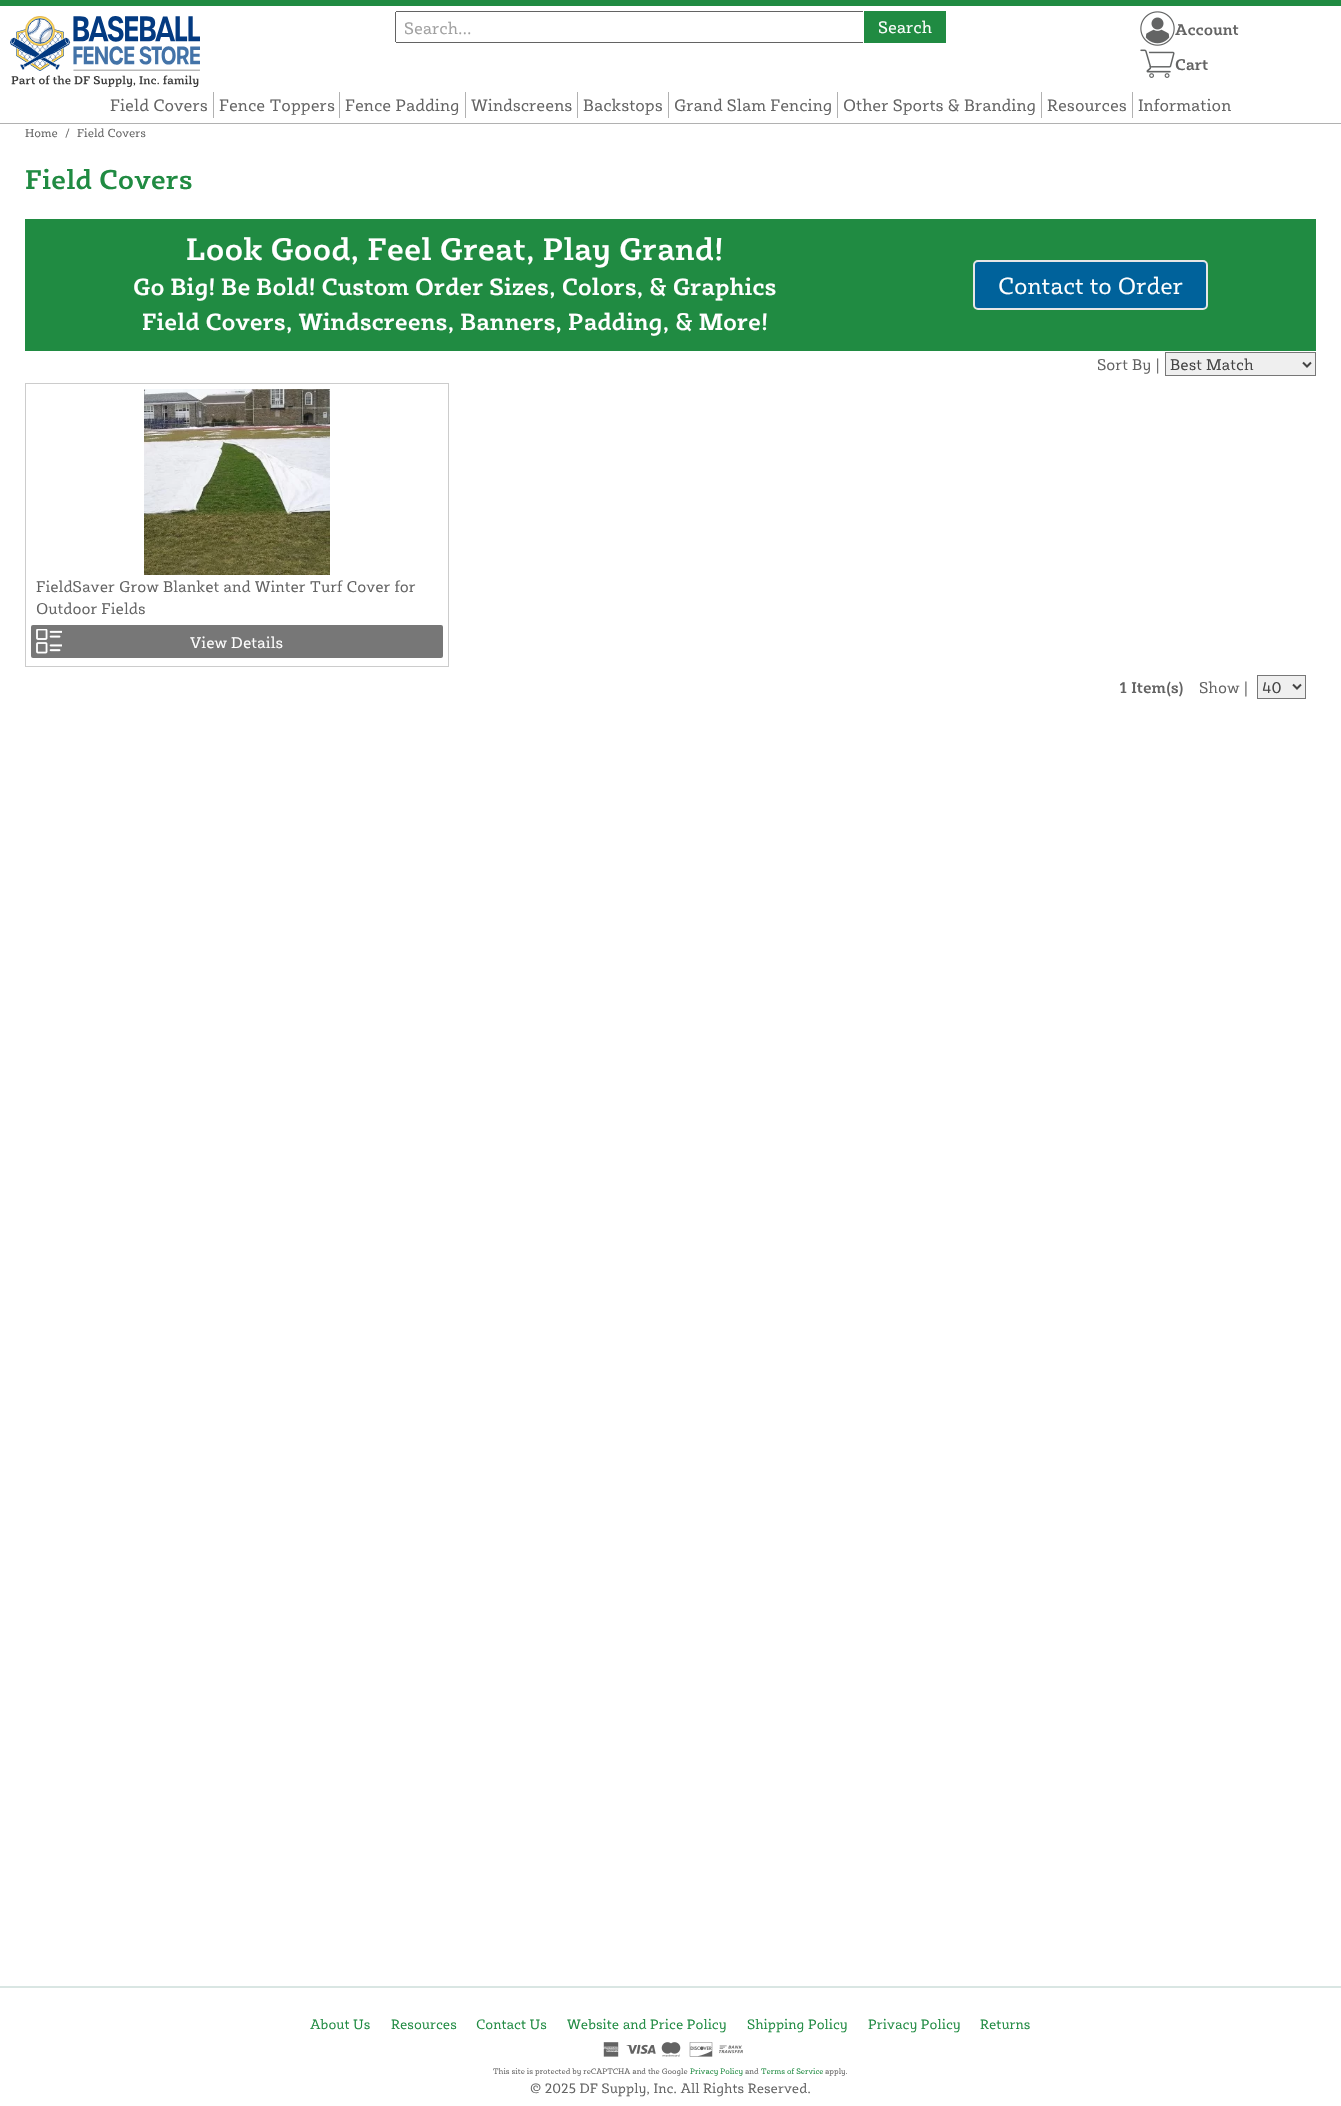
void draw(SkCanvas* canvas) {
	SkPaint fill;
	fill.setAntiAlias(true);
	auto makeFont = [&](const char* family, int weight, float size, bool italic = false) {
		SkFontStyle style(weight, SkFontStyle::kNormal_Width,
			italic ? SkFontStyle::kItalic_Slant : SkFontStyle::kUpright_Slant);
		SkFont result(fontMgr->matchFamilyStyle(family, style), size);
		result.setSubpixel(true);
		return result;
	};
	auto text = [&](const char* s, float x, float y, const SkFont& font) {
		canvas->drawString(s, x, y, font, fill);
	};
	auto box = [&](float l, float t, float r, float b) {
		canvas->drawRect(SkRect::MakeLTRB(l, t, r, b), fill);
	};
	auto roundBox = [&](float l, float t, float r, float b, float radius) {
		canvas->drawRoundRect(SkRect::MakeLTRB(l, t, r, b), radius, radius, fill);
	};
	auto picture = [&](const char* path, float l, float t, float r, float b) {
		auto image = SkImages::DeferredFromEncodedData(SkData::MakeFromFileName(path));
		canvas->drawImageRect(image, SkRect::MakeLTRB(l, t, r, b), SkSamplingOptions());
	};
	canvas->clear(0xFFFFFFFF);
	fill.setColor(0xFF208B42);
	box(0, 0, 1341, 6);
	fill.setColor(0xFFB1B1B1);
	box(0, 123, 1341, 124);
	picture("image0.png", 10, 16, 200, 87);
	fill.setColor(0xFF636363);
	box(396, 11, 863, 12);
	box(396, 42, 863, 43);
	box(395, 12, 396, 42);
	{
		const SkColor colors[] = {0xFF208B42, 0xFF208B42, 0xFF5FAD41, 0xFF208B42, 0xFF208B42};
		const float stops[] = {0, 0.13f, 0.2f, 0.27f, 1};
		const SkPoint ends[] = {{717, 88}, {929, -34}};
		fill.setShader(SkGradientShader::MakeLinear(ends, colors, stops, 5, SkTileMode::kClamp));
		fill.setAlpha(255);
	}
	box(864, 11, 946, 43);
	picture("image1.png", 1140, 11, 1175, 46);
	picture("image2.png", 1140, 49, 1175, 78);
	fill.setShader(nullptr);
	fill.setColor(0xFFB1B1B1);
	box(213, 92, 214, 118);
	box(339, 92, 340, 118);
	box(465, 92, 466, 118);
	box(577, 92, 578, 118);
	box(668, 92, 669, 118);
	box(837, 92, 838, 118);
	box(1041, 92, 1042, 118);
	box(1132, 92, 1133, 118);
	fill.setColor(0xFF208B42);
	box(25, 219, 1316, 351);
	fill.setColor(0xFF00629B);
	canvas->drawRoundRect(SkRect::MakeLTRB(974, 261, 1207, 309), 4, 4, fill);
	fill.setStyle(SkPaint::kStroke_Style);
	fill.setStrokeWidth(2);
	fill.setColor(0xFFE6E6E6);
	canvas->drawRoundRect(SkRect::MakeLTRB(974, 261, 1207, 309), 4, 4, fill);
	fill.setStyle(SkPaint::kFill_Style);
	fill.setColor(0xFFEFEFEF);
	canvas->drawRect(SkRect::MakeLTRB(1165.5f, 352.5f, 1315.5f, 375.5f), fill);
	fill.setStyle(SkPaint::kStroke_Style);
	fill.setStrokeWidth(1);
	fill.setColor(0xFF777777);
	canvas->drawRect(SkRect::MakeLTRB(1165.5f, 352.5f, 1315.5f, 375.5f), fill);
	fill.setStrokeWidth(2);
	fill.setColor(0xFF444444);
	canvas->drawPath(SkPathBuilder().moveTo(1303, 362.5f).lineTo(1307, 366.5f).lineTo(1311, 362.5f).detach(), fill);
	fill.setStrokeWidth(1);
	fill.setColor(0xFFCCCCCC);
	canvas->drawRect(SkRect::MakeLTRB(25.5f, 383.5f, 448.5f, 666.5f), fill);
	picture("image3.png", 144, 389, 330, 575);
	fill.setStyle(SkPaint::kFill_Style);
	{
		const SkColor colors[] = {0xFF777777, 0xFF777777, 0xFF444444, 0xFF777777, 0xFF777777};
		const float stops[] = {0, 0.13f, 0.2f, 0.27f, 1};
		const SkPoint ends[] = {{-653, 917}, {303, 366}};
		fill.setShader(SkGradientShader::MakeLinear(ends, colors, stops, 5, SkTileMode::kClamp));
		fill.setAlpha(255);
	}
	roundBox(31, 625, 443, 658, 2);
	picture("image4.png", 36, 629, 62, 654);
	fill.setShader(nullptr);
	fill.setColor(0xFFEFEFEF);
	canvas->drawRect(SkRect::MakeLTRB(1257.5f, 675.5f, 1305.5f, 698.5f), fill);
	fill.setStyle(SkPaint::kStroke_Style);
	fill.setColor(0xFF777777);
	canvas->drawRect(SkRect::MakeLTRB(1257.5f, 675.5f, 1305.5f, 698.5f), fill);
	fill.setStrokeWidth(2);
	fill.setColor(0xFF444444);
	canvas->drawPath(SkPathBuilder().moveTo(1293, 684.5f).lineTo(1297, 688.5f).lineTo(1301, 684.5f).detach(), fill);
	fill.setStyle(SkPaint::kFill_Style);
	fill.setColor(0xFFD9E6E3);
	box(0, 1986, 1341, 1988);
	picture("image5.png", 603, 2042, 619, 2057);
	picture("image6.png", 626, 2044, 656, 2054);
	picture("image7.png", 661, 2042, 681, 2057);
	picture("image8.png", 689, 2042, 713, 2057);
	picture("image9.png", 719, 2045, 743, 2054);
	auto font1 = makeFont("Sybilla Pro", 400, 17);
	fill.setColor(0xFFA0A0A0);
	text("Search...", 404, 34, font1);
	fill.setColor(0xFFFFFFFF);
	text("Search", 878, 33, font1);
	auto font2 = makeFont("Sybilla Pro", 500, 16);
	fill.setColor(0xFF636363);
	text("Account", 1175, 35, font2);
	text("Cart", 1175, 70, font2);
	text("Field Covers", 110, 111, font1);
	text("Fence Toppers", 219, 111, font1);
	text("Fence Padding", 345, 111, font1);
	text("Windscreens", 471, 111, font1);
	text("Backstops", 583, 111, font1);
	text("Grand Slam Fencing", 674, 111, font1);
	text("Other Sports & Branding", 843, 111, font1);
	text("Resources", 1047, 111, font1);
	text("Information", 1138, 111, font1);
	auto font3 = makeFont("Sybilla Pro", 400, 12);
	text("Home", 25, 137, font3);
	text("/", 65, 137, font3);
	text("Field Covers", 77, 137, font3);
	auto font4 = makeFont("Sybilla Pro", 500, 28);
	fill.setColor(0xFF208B42);
	text("Field Covers", 25, 189, font4);
	auto font5 = makeFont("Sybilla Pro", 500, 32);
	fill.setColor(0xFFFFFFFF);
	text("Look Good, Feel Great, Play Grand!", 186, 260, font5);
	auto font6 = makeFont("Sybilla Pro", 500, 24);
	text("Go Big! Be Bold! Custom Order Sizes, Colors, & Graphics", 133, 295, font6);
	text("Field Covers, Windscreens, Banners, Padding, & More!", 142, 330, font6);
	auto font7 = makeFont("Sybilla Pro", 400, 24);
	text("Contact to Order", 998, 294, font7);
	auto font8 = makeFont("Sybilla Pro", 400, 16);
	fill.setColor(0xFF636363);
	text("Sort By |", 1097, 370, font8);
	fill.setColor(0xFF444444);
	text("Best Match", 1170, 370, font8);
	fill.setColor(0xFF636363);
	text("FieldSaver Grow Blanket and Winter Turf Cover for", 36, 592, font8);
	text("Outdoor Fields", 36, 614, font8);
	fill.setColor(0xFFFFFFFF);
	text("View Details", 190, 648, font8);
	fill.setColor(0xFF636363);
	text("1 Item(s)", 1119, 693, font2);
	text("Show |", 1199, 693, font8);
	fill.setColor(0xFF444444);
	text("40", 1262, 693, font8);
	auto font9 = makeFont("Sybilla Pro", 400, 14);
	fill.setColor(0xFF208B42);
	text("About Us", 310, 2029, font9);
	text("Resources", 391, 2029, font9);
	text("Contact Us", 476, 2029, font9);
	text("Website and Price Policy", 567, 2029, font9);
	text("Shipping Policy", 747, 2029, font9);
	text("Privacy Policy", 868, 2029, font9);
	text("Returns", 980, 2029, font9);
	auto font10 = makeFont("Sybilla Pro", 400, 8);
	fill.setColor(0xFF636363);
	text("This site is protected by reCAPTCHA and the Google", 493, 2074, font10);
	fill.setColor(0xFF208B42);
	text("Privacy Policy", 690, 2074, font10);
	fill.setColor(0xFF636363);
	text("and", 745, 2074, font10);
	fill.setColor(0xFF208B42);
	text("Terms of Service", 761, 2074, font10);
	fill.setColor(0xFF636363);
	text("apply.", 825, 2074, font10);
	text("© 2025 DF Supply, Inc. All Rights Reserved.", 530, 2093, font9);
}
